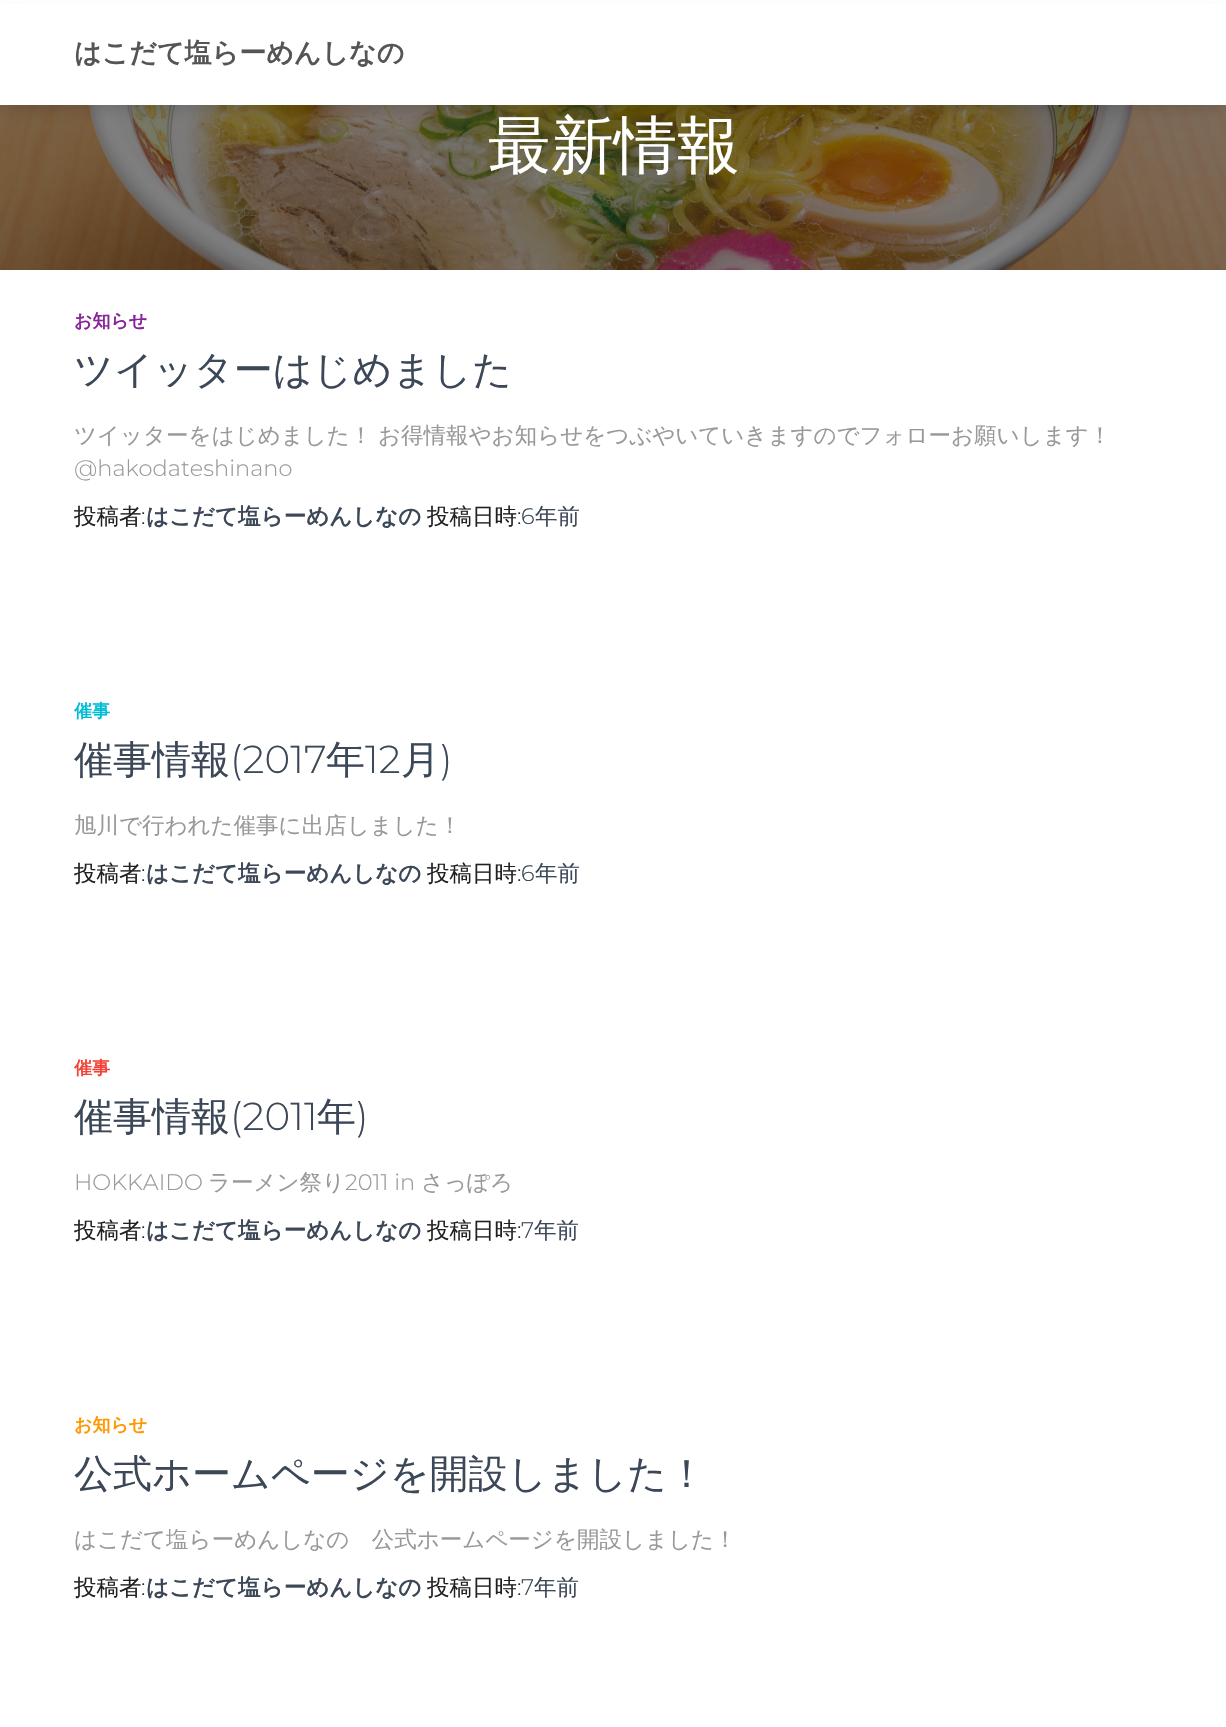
void draw(SkCanvas* canvas) {
	SkPaint fill;
	fill.setAntiAlias(true);
	auto makeFont = [&](const char* family, int weight, float size, bool italic = false) {
		SkFontStyle style(weight, SkFontStyle::kNormal_Width,
			italic ? SkFontStyle::kItalic_Slant : SkFontStyle::kUpright_Slant);
		SkFont result(fontMgr->matchFamilyStyle(family, style), size);
		result.setSubpixel(true);
		return result;
	};
	auto text = [&](const char* s, float x, float y, const SkFont& font) {
		canvas->drawString(s, x, y, font, fill);
	};
	auto spacedText = [&](const char* s, float x, float y, const SkFont& font, const SkPaint& ink, float letter, float word) {
		std::vector<SkGlyphID> glyphs(font.countText(s, strlen(s), SkTextEncoding::kUTF8));
		std::vector<float> xs(glyphs.size());
		font.textToGlyphs(s, strlen(s), SkTextEncoding::kUTF8, glyphs);
		font.getXPos(glyphs, xs, x);
		float extra = 0;
		for (size_t i = 0; i < glyphs.size(); i++) {
			xs[i] += extra;
			extra += letter + word * (glyphs[i] == font.unicharToGlyph(' '));
		}
		canvas->drawTextBlob(SkTextBlob::MakeFromPosHGlyphs(glyphs, xs, y, font), 0, 0, ink);
	};
	auto box = [&](float l, float t, float r, float b) {
		canvas->drawRect(SkRect::MakeLTRB(l, t, r, b), fill);
	};
	auto picture = [&](const char* path, float l, float t, float r, float b) {
		auto image = SkImages::DeferredFromEncodedData(SkData::MakeFromFileName(path));
		canvas->drawImageRect(image, SkRect::MakeLTRB(l, t, r, b), SkSamplingOptions());
	};
	canvas->clear(0xFFFFFFFF);
	picture("image0.png", 0, 105, 1226, 270);
	fill.setColor(0x26000000);
	fill.setMaskFilter(SkMaskFilter::MakeBlur(kNormal_SkBlurStyle, 7.5f));
	canvas->drawRect(SkRect::MakeLTRB(6, 15, 1221, 108), fill);
	fill.setMaskFilter(nullptr);
	fill.setColor(0xFFFFFFFF);
	box(0, 4, 1226, 105);
	auto font1 = makeFont("WenQuanYi Zen Hei", 700, 27);
	fill.setColor(0xFF555555);
	text("はこだて塩らーめんしなの", 74, 62, font1);
	auto font2 = makeFont("WenQuanYi Zen Hei", 500, 63);
	fill.setColor(0xFFFFFFFF);
	text("最新情報", 488, 167, font2);
	auto font3 = makeFont("WenQuanYi Zen Hei", 700, 18);
	fill.setColor(0xFF89229B);
	text("お知らせ", 74, 327, font3);
	auto font4 = makeFont("WenQuanYi Zen Hei", 500, 39);
	fill.setColor(0xFF3C4858);
	text("ツイッターはじめました", 74, 383, font4);
	auto font5 = makeFont("WenQuanYi Zen Hei", 500, 22.5f);
	fill.setColor(0xFF999999);
	spacedText("ツイッターをはじめました！ お得情報やお知らせをつぶやいていきますのでフォローお願いします！", 74, 443, font5, fill, 0, -1);
	auto font6 = makeFont("Montserrat", 300, 22.5f);
	text("@hakodateshinano", 74, 476, font6);
	fill.setColor(0xFF212121);
	text("投稿者", 74, 524, font5);
	text(":", 141, 524, font6);
	auto font7 = makeFont("WenQuanYi Zen Hei", 700, 22.5f);
	fill.setColor(0xFF3C4858);
	text("はこだて塩らーめんしなの", 146, 524, font7);
	fill.setColor(0xFF212121);
	text("投稿日時", 427, 524, font5);
	text(":", 517, 524, font6);
	fill.setColor(0xFF3C4858);
	text("6", 521, 524, font6);
	text("年前", 535, 524, font5);
	fill.setColor(0xFF00BCD4);
	text("催事", 74, 717, font3);
	fill.setColor(0xFF3C4858);
	text("催事情報", 74, 773, font4);
	auto font8 = makeFont("Montserrat", 300, 39);
	text("(2017", 230, 773, font8);
	text("年", 326, 773, font4);
	text("12", 365, 773, font8);
	text("月", 401, 773, font4);
	text(")", 440, 773, font8);
	fill.setColor(0xFF999999);
	text("旭川で行われた催事に出店しました！", 74, 833, font5);
	fill.setColor(0xFF212121);
	text("投稿者", 74, 881, font5);
	text(":", 141, 881, font6);
	fill.setColor(0xFF3C4858);
	text("はこだて塩らーめんしなの", 146, 881, font7);
	fill.setColor(0xFF212121);
	text("投稿日時", 427, 881, font5);
	text(":", 517, 881, font6);
	fill.setColor(0xFF3C4858);
	text("6", 521, 881, font6);
	text("年前", 535, 881, font5);
	fill.setColor(0xFFF44336);
	text("催事", 74, 1074, font3);
	fill.setColor(0xFF3C4858);
	text("催事情報", 74, 1130, font4);
	text("(2011", 230, 1130, font8);
	text("年", 317, 1130, font4);
	text(")", 356, 1130, font8);
	fill.setColor(0xFF999999);
	text("HOKKAIDO", 74, 1190, font6);
	text("ラーメン祭り", 208, 1190, font5);
	text("2011 in", 345, 1190, font6);
	text("さっぽろ", 421, 1190, font5);
	fill.setColor(0xFF212121);
	text("投稿者", 74, 1238, font5);
	text(":", 141, 1238, font6);
	fill.setColor(0xFF3C4858);
	text("はこだて塩らーめんしなの", 146, 1238, font7);
	fill.setColor(0xFF212121);
	text("投稿日時", 427, 1238, font5);
	text(":", 517, 1238, font6);
	fill.setColor(0xFF3C4858);
	text("7", 521, 1238, font6);
	text("年前", 534, 1238, font5);
	fill.setColor(0xFFFF9800);
	text("お知らせ", 74, 1431, font3);
	fill.setColor(0xFF3C4858);
	text("公式ホームページを開設しました！", 74, 1487, font4);
	fill.setColor(0xFF999999);
	text("はこだて塩らーめんしなの　公式ホームページを開設しました！", 74, 1547, font5);
	fill.setColor(0xFF212121);
	text("投稿者", 74, 1595, font5);
	text(":", 141, 1595, font6);
	fill.setColor(0xFF3C4858);
	text("はこだて塩らーめんしなの", 146, 1595, font7);
	fill.setColor(0xFF212121);
	text("投稿日時", 427, 1595, font5);
	text(":", 517, 1595, font6);
	fill.setColor(0xFF3C4858);
	text("7", 521, 1595, font6);
	text("年前", 534, 1595, font5);
}
